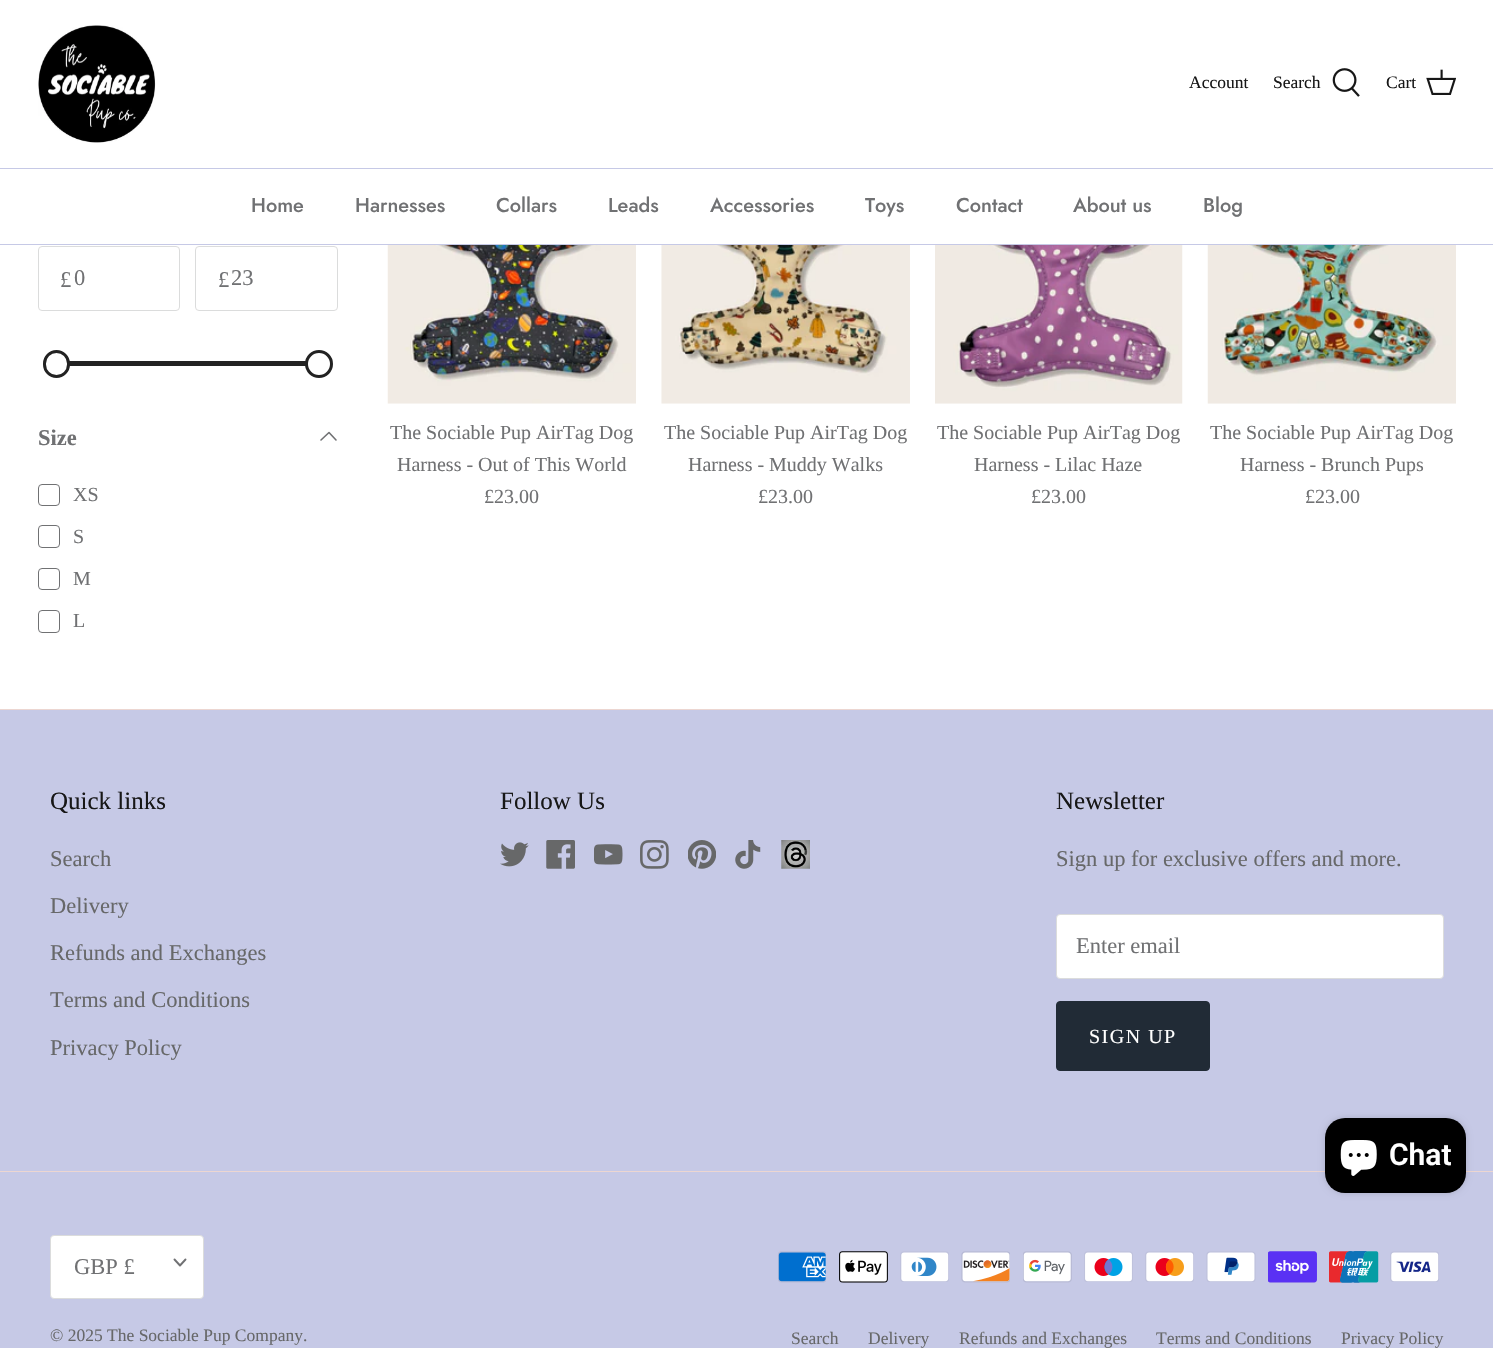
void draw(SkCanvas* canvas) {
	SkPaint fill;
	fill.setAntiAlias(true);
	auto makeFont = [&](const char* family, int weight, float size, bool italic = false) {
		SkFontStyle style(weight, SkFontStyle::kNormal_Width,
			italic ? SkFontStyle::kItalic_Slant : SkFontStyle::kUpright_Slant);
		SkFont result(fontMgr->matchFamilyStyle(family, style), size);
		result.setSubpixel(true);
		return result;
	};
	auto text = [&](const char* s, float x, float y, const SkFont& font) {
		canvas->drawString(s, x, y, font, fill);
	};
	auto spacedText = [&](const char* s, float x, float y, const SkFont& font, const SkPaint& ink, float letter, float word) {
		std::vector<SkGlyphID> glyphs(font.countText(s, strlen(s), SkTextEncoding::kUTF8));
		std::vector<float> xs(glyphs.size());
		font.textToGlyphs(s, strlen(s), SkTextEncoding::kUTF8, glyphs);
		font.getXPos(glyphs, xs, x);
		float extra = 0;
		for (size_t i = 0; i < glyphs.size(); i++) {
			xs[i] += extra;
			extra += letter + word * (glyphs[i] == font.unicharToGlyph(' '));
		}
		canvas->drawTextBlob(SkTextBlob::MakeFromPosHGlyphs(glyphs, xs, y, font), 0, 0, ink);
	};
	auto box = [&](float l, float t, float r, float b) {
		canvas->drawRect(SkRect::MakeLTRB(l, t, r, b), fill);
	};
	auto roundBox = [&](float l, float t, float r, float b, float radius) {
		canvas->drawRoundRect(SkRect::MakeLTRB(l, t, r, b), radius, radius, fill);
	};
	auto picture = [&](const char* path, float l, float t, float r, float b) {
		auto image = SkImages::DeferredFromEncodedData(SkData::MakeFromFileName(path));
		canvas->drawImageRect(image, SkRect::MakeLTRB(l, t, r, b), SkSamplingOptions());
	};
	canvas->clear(0xFFFFFFFF);
	fill.setColor(0xFFC6C9E6);
	box(0, 168, 1493, 169);
	picture("image0.png", 38, 25, 156, 143);
	picture("image1.png", 1332, 68, 1360, 97);
	picture("image2.png", 1426, 69, 1456, 95);
	box(0, 244, 1493, 245);
	fill.setStyle(SkPaint::kStroke_Style);
	fill.setStrokeWidth(1);
	fill.setColor(0xFFDBDCDC);
	canvas->drawRoundRect(SkRect::MakeLTRB(38.5f, 246.5f, 179.5f, 310.5f), 3.5f, 3.5f, fill);
	canvas->drawRoundRect(SkRect::MakeLTRB(195.5f, 246.5f, 337.5f, 310.5f), 3.5f, 3.5f, fill);
	fill.setStyle(SkPaint::kFill_Style);
	fill.setColor(0xFF222222);
	box(69, 361, 306, 366);
	fill.setColor(0xFFFFFFFF);
	canvas->drawRoundRect(SkRect::MakeLTRB(44.5f, 351.5f, 68.5f, 376.5f), 12, 12, fill);
	fill.setStyle(SkPaint::kStroke_Style);
	fill.setStrokeWidth(3);
	fill.setColor(0xFF222222);
	canvas->drawRoundRect(SkRect::MakeLTRB(44.5f, 351.5f, 68.5f, 376.5f), 12, 12, fill);
	fill.setStyle(SkPaint::kFill_Style);
	fill.setColor(0xFFFFFFFF);
	canvas->drawCircle(319, 364, 12.5f, fill);
	fill.setStyle(SkPaint::kStroke_Style);
	fill.setColor(0xFF222222);
	canvas->drawCircle(319, 364, 12.5f, fill);
	fill.setStrokeWidth(1.6f);
	fill.setStrokeCap(SkPaint::kRound_Cap);
	fill.setStrokeJoin(SkPaint::kRound_Join);
	fill.setColor(0xFF707173);
	canvas->drawPath(SkPathBuilder().moveTo(336, 440).lineTo(329, 432.5f).lineTo(321, 440).detach(), fill);
	fill.setStrokeWidth(1);
	fill.setStrokeCap(SkPaint::kButt_Cap);
	fill.setStrokeJoin(SkPaint::kMiter_Join);
	canvas->drawRoundRect(SkRect::MakeLTRB(38.5f, 484.5f, 59.5f, 505.5f), 3.5f, 3.5f, fill);
	canvas->drawRoundRect(SkRect::MakeLTRB(38.5f, 525.5f, 59.5f, 547.5f), 3.5f, 3.5f, fill);
	canvas->drawRoundRect(SkRect::MakeLTRB(38.5f, 568.5f, 59.5f, 589.5f), 3.5f, 3.5f, fill);
	canvas->drawRoundRect(SkRect::MakeLTRB(38.5f, 610.5f, 59.5f, 632.5f), 3.5f, 3.5f, fill);
	picture("image3.png", 387, 245, 636, 404);
	picture("image4.png", 661, 245, 910, 404);
	picture("image5.png", 935, 245, 1183, 404);
	picture("image6.png", 1207, 245, 1456, 404);
	fill.setStyle(SkPaint::kFill_Style);
	fill.setColor(0xFFC6C9E6);
	box(0, 710, 1493, 1348);
	fill.setColor(0xFFECD6D1);
	box(0, 709, 1493, 710);
	picture("image7.png", 500, 842, 529, 867);
	picture("image8.png", 546, 840, 575, 869);
	picture("image9.png", 594, 844, 623, 865);
	picture("image10.png", 640, 840, 669, 869);
	picture("image11.png", 688, 840, 716, 869);
	picture("image12.png", 735, 840, 761, 869);
	picture("image13.png", 781, 840, 810, 869);
	fill.setColor(0xFFFFFFFF);
	canvas->drawRoundRect(SkRect::MakeLTRB(1056.5f, 914.5f, 1443.5f, 978.5f), 3.5f, 3.5f, fill);
	fill.setStyle(SkPaint::kStroke_Style);
	fill.setColor(0xFFDBDCDC);
	canvas->drawRoundRect(SkRect::MakeLTRB(1056.5f, 914.5f, 1443.5f, 978.5f), 3.5f, 3.5f, fill);
	fill.setStyle(SkPaint::kFill_Style);
	fill.setColor(0xFF212B36);
	canvas->drawRoundRect(SkRect::MakeLTRB(1056.5f, 1001.5f, 1209.5f, 1070.5f), 3.5f, 3.5f, fill);
	fill.setStyle(SkPaint::kStroke_Style);
	canvas->drawRoundRect(SkRect::MakeLTRB(1056.5f, 1001.5f, 1209.5f, 1070.5f), 3.5f, 3.5f, fill);
	fill.setStyle(SkPaint::kFill_Style);
	fill.setColor(0xFFECD6D1);
	box(0, 1171, 1493, 1172);
	fill.setColor(0xFFFFFFFF);
	canvas->drawRoundRect(SkRect::MakeLTRB(50.5f, 1235.5f, 203.5f, 1298.5f), 3.5f, 3.5f, fill);
	fill.setStyle(SkPaint::kStroke_Style);
	fill.setColor(0xFFDBDCDC);
	canvas->drawRoundRect(SkRect::MakeLTRB(50.5f, 1235.5f, 203.5f, 1298.5f), 3.5f, 3.5f, fill);
	fill.setStrokeWidth(1.9f);
	fill.setStrokeCap(SkPaint::kRound_Cap);
	fill.setStrokeJoin(SkPaint::kRound_Join);
	fill.setColor(0xFF707173);
	canvas->drawPath(SkPathBuilder().moveTo(174.5f, 1259.5f).lineTo(180, 1265.5f).lineTo(185.5f, 1259.5f).detach(), fill);
	picture("image14.png", 778, 1251, 826, 1283);
	picture("image15.png", 839, 1251, 888, 1283);
	picture("image16.png", 900, 1251, 949, 1282);
	picture("image17.png", 961, 1251, 1010, 1283);
	picture("image18.png", 1023, 1251, 1072, 1283);
	picture("image19.png", 1084, 1251, 1133, 1282);
	picture("image20.png", 1145, 1251, 1194, 1282);
	picture("image21.png", 1206, 1251, 1256, 1282);
	picture("image22.png", 1268, 1251, 1317, 1283);
	picture("image23.png", 1329, 1251, 1379, 1283);
	picture("image24.png", 1390, 1251, 1439, 1282);
	fill.setStyle(SkPaint::kFill_Style);
	fill.setColor(0x26000000);
	fill.setMaskFilter(SkMaskFilter::MakeBlur(kNormal_SkBlurStyle, 3));
	canvas->drawRoundRect(SkRect::MakeLTRB(1325, 1118, 1466, 1193), 20, 20, fill);
	fill.setMaskFilter(nullptr);
	fill.setColor(0xFF000000);
	roundBox(1325, 1118, 1466, 1193, 20);
	picture("image25.png", 1340, 1140, 1377, 1176);
	auto font1 = makeFont("Liberation Serif", 400, 17.5f);
	fill.setColor(0xFF171717);
	text("Account", 1189, 88, font1);
	text("Search", 1273, 88, font1);
	text("Cart", 1386, 88, font1);
	auto font2 = makeFont("Jost", 500, 20);
	fill.setColor(0xFF707173);
	text("Home", 251, 212, font2);
	text("Harnesses", 355, 212, font2);
	text("Collars", 496, 212, font2);
	text("Leads", 608, 212, font2);
	text("Accessories", 710, 212, font2);
	text("Toys", 865, 212, font2);
	text("Contact", 956, 212, font2);
	text("About us", 1073, 212, font2);
	text("Blog", 1203, 212, font2);
	auto font3 = makeFont("Liberation Serif", 400, 22.5f);
	text("£", 60, 287, font3);
	text("0", 74, 285, font3);
	text("£", 218, 287, font3);
	text("23", 231, 285, font3);
	auto font4 = makeFont("Liberation Serif", 700, 22.5f);
	text("Size", 38, 445, font4);
	auto font5 = makeFont("Liberation Serif", 400, 20);
	text("XS", 73, 501, font5);
	text("S", 73, 543, font5);
	text("M", 73, 585, font5);
	text("L", 73, 627, font5);
	text("The Sociable Pup AirTag Dog", 390, 439, font5);
	text("Harness - Out of This World", 397, 471, font5);
	text("£23.00", 484, 503, font5);
	text("The Sociable Pup AirTag Dog", 664, 439, font5);
	text("Harness - Muddy Walks", 688, 471, font5);
	text("£23.00", 758, 503, font5);
	text("The Sociable Pup AirTag Dog", 937, 439, font5);
	text("Harness - Lilac Haze", 974, 471, font5);
	text("£23.00", 1031, 503, font5);
	text("The Sociable Pup AirTag Dog", 1210, 439, font5);
	text("Harness - Brunch Pups", 1240, 471, font5);
	text("£23.00", 1305, 503, font5);
	auto font6 = makeFont("Liberation Serif", 400, 25);
	fill.setColor(0xFF171717);
	text("Quick links", 50, 809, font6);
	fill.setColor(0xFF676869);
	text("Search", 50, 866, font3);
	text("Delivery", 50, 913, font3);
	text("Refunds and Exchanges", 50, 960, font3);
	text("Terms and Conditions", 50, 1007, font3);
	text("Privacy Policy", 50, 1055, font3);
	fill.setColor(0xFF171717);
	text("Follow Us", 500, 809, font6);
	text("Newsletter", 1056, 809, font6);
	fill.setColor(0xFF676869);
	text("Sign up for exclusive offers and more.", 1056, 866, font3);
	fill.setColor(0xFF707173);
	text("Enter email", 1076, 953, font3);
	fill.setColor(0xFFFFFFFF);
	spacedText("SIGN UP", 1089, 1043, font5, fill, 1.5f, 0);
	fill.setColor(0xFF707173);
	text("GBP £", 74, 1274, font3);
	fill.setColor(0xFF676869);
	text("© 2025 The Sociable Pup Company.", 50, 1341, font1);
	text("Search", 791, 1344, font1);
	text("Delivery", 868, 1344, font1);
	text("Refunds and Exchanges", 959, 1344, font1);
	text("Terms and Conditions", 1156, 1344, font1);
	text("Privacy Policy", 1341, 1344, font1);
	auto font7 = makeFont("Roboto", 600, 30);
	fill.setColor(0xFFFFFFFF);
	text("Chat", 1389, 1165, font7);
}
